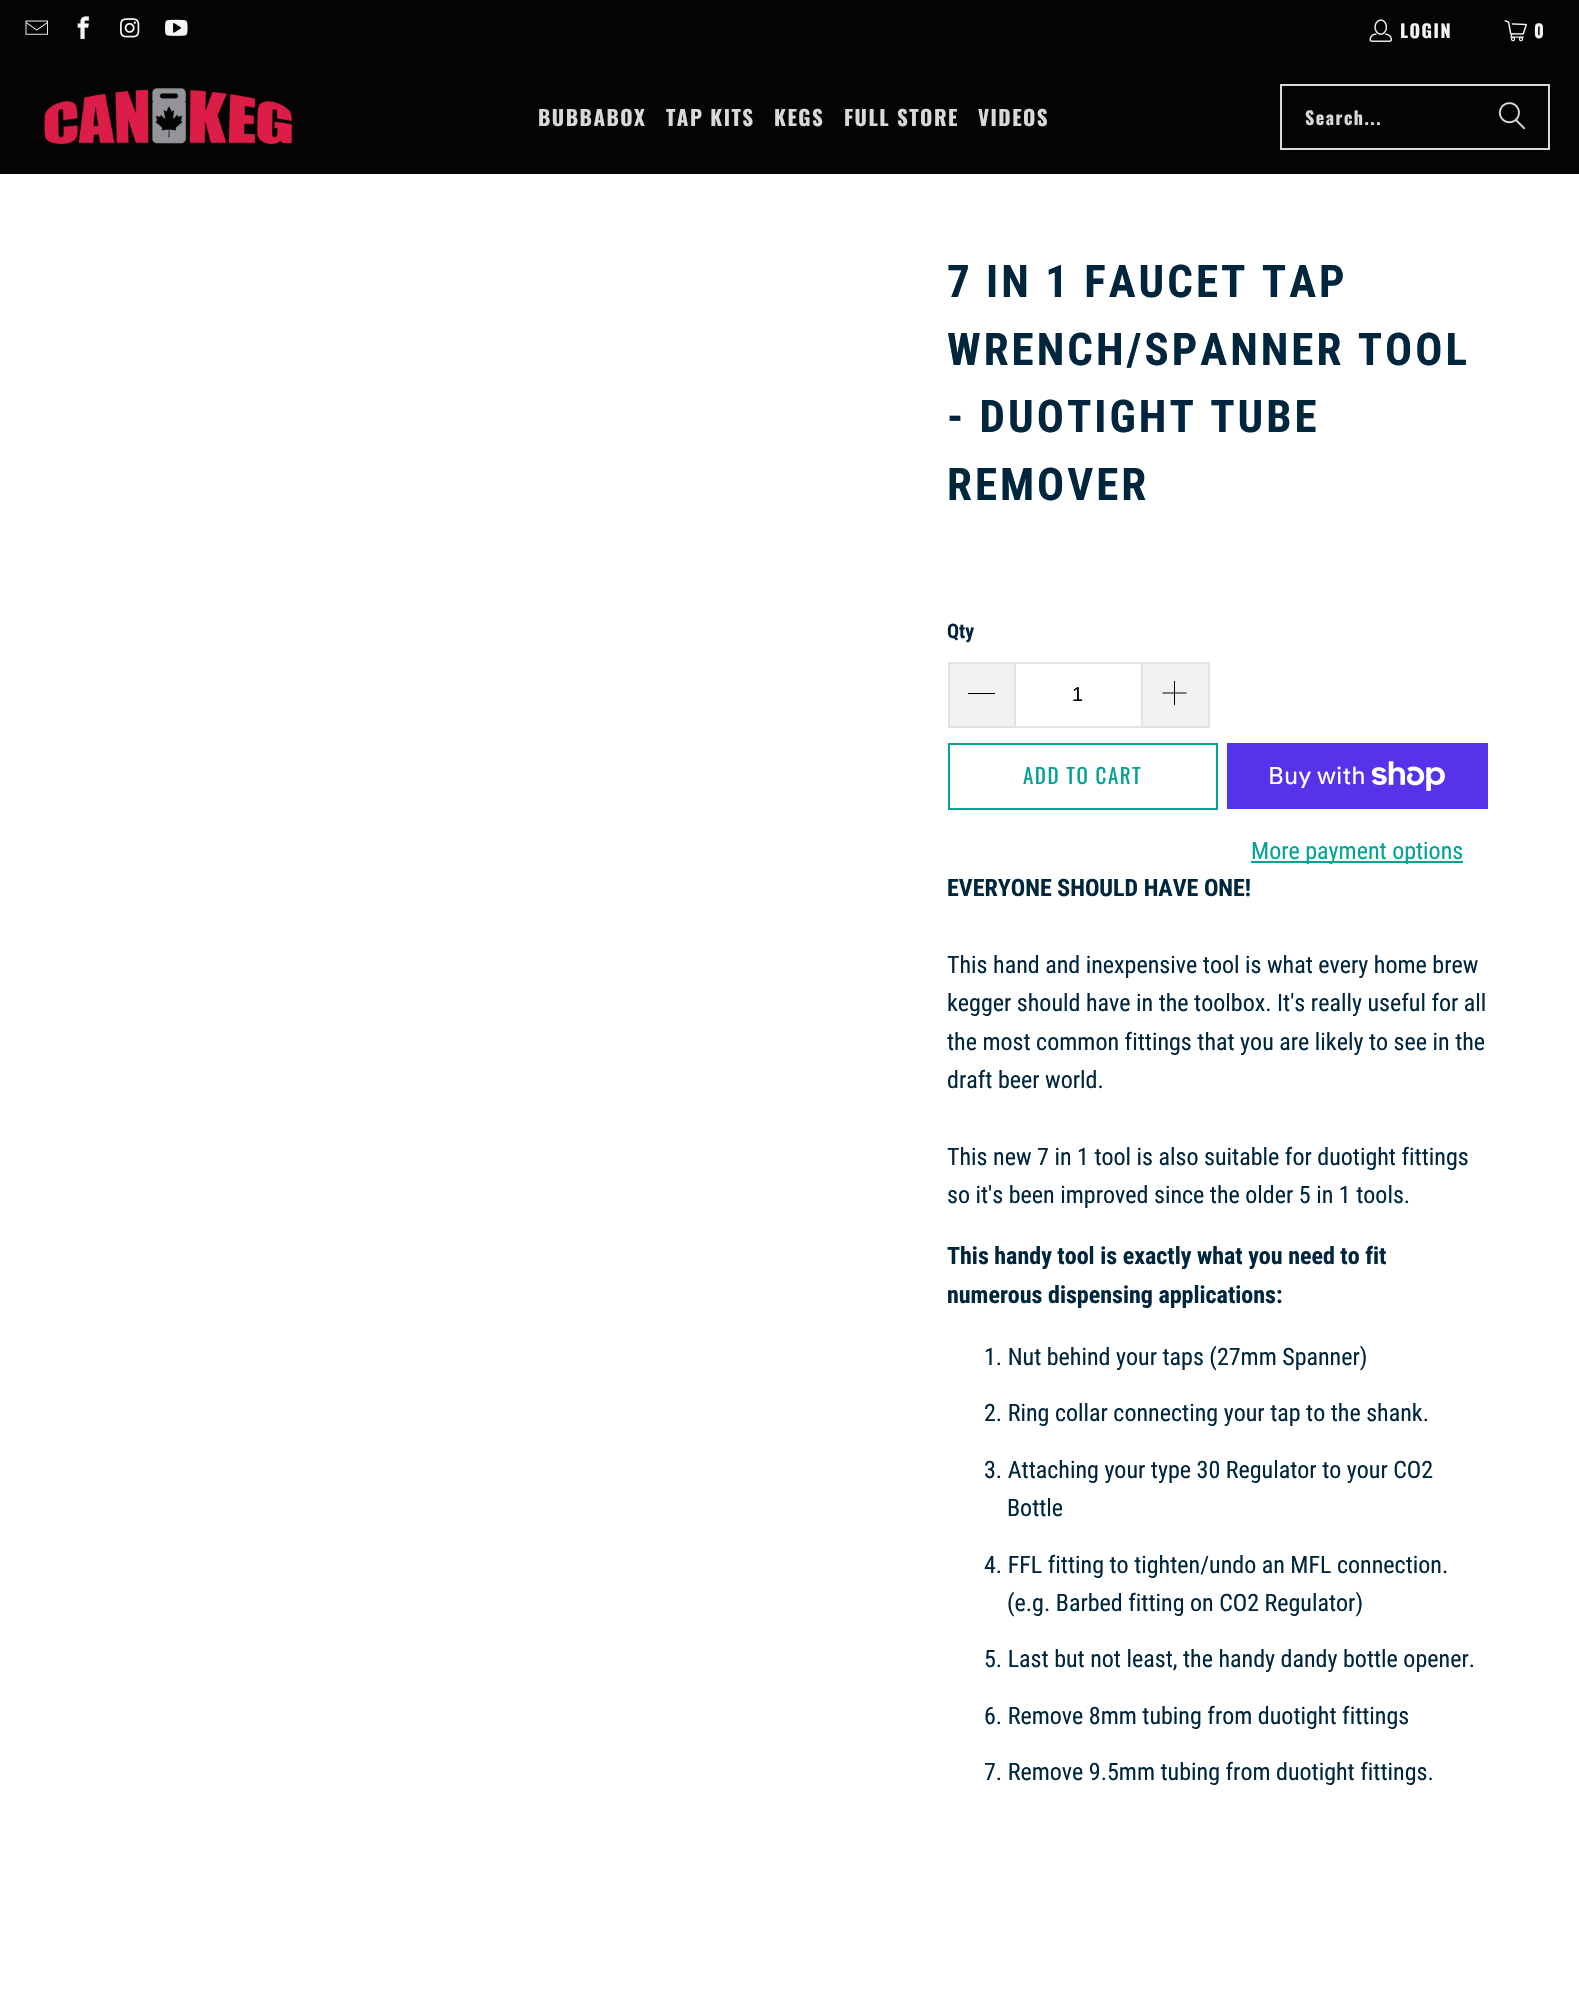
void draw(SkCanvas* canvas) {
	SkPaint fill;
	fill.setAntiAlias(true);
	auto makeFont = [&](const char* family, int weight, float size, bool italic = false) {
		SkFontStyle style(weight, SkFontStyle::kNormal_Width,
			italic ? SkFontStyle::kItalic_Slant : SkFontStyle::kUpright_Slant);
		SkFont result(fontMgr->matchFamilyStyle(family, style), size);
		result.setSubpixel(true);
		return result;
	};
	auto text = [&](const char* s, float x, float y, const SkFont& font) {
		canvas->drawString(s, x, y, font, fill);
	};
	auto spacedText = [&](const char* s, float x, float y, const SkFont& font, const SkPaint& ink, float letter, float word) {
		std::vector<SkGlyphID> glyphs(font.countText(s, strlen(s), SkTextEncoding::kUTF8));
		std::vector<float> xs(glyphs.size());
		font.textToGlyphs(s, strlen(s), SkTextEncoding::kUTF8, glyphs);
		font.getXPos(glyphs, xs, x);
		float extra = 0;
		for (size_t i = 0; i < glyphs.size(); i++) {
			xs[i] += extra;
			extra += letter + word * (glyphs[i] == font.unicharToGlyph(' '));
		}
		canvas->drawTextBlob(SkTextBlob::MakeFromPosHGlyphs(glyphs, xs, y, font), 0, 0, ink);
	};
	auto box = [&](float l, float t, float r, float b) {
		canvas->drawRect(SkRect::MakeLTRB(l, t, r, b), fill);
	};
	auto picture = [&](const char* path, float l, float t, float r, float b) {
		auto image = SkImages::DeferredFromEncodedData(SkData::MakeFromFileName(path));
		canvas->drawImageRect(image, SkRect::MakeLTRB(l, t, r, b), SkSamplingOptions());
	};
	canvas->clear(0xFFFFFFFF);
	fill.setColor(0xFF040404);
	box(0, 0, 1579, 174);
	picture("image0.png", 25, 20, 48, 35);
	picture("image1.png", 77, 16, 89, 39);
	picture("image2.png", 120, 18, 140, 38);
	picture("image3.png", 165, 19, 188, 36);
	picture("image4.png", 1369, 19, 1392, 42);
	picture("image5.png", 1504, 20, 1527, 42);
	picture("image6.png", 44, 88, 292, 144);
	fill.setStyle(SkPaint::kStroke_Style);
	fill.setStrokeWidth(2);
	fill.setColor(0xFFD9D9D9);
	canvas->drawRect(SkRect::MakeLTRB(1281, 85, 1549, 149), fill);
	picture("image7.png", 1498, 102, 1526, 130);
	fill.setStyle(SkPaint::kFill_Style);
	fill.setColor(0xFFF2F2F2);
	box(950, 664, 1014, 726);
	fill.setColor(0xFFE2E2E2);
	box(948, 662, 1014, 664);
	box(948, 726, 1014, 728);
	box(948, 662, 950, 728);
	fill.setColor(0xFF000000);
	box(968, 693, 995, 694);
	fill.setStyle(SkPaint::kStroke_Style);
	fill.setColor(0xFFE2E2E2);
	canvas->drawRect(SkRect::MakeLTRB(1015, 663, 1142, 727), fill);
	fill.setStyle(SkPaint::kFill_Style);
	fill.setColor(0xFFF2F2F2);
	box(1143, 664, 1208, 726);
	fill.setColor(0xFFE2E2E2);
	box(1143, 662, 1209, 664);
	box(1208, 662, 1210, 728);
	box(1143, 726, 1209, 728);
	picture("image8.png", 1162, 681, 1187, 705);
	fill.setStyle(SkPaint::kStroke_Style);
	fill.setColor(0xFF03A196);
	canvas->drawRect(SkRect::MakeLTRB(949, 744, 1217, 809), fill);
	fill.setStyle(SkPaint::kFill_Style);
	fill.setColor(0xFF5433EB);
	box(1227, 743, 1488, 809);
	picture("image9.png", 1371, 761, 1445, 791);
	fill.setColor(0xFF03A196);
	box(1251, 861, 1463, 863);
	auto font1 = makeFont("Oswald", 700, 18);
	fill.setColor(0xFFF4F4F4);
	spacedText("LOGIN", 1400, 38, font1, fill, 1.5f, 0);
	spacedText("0", 1534, 38, font1, fill, 1.5f, 0);
	auto font2 = makeFont("Oswald", 700, 21);
	fill.setColor(0xFFD9D9D9);
	spacedText("BUBBABOX", 538, 126, font2, fill, 1.5f, 0);
	spacedText("TAP KITS", 666, 126, font2, fill, 1.5f, 0);
	spacedText("KEGS", 774, 126, font2, fill, 1.5f, 0);
	spacedText("FULL STORE", 844, 126, font2, fill, 1.5f, 0);
	spacedText("VIDEOS", 978, 126, font2, fill, 1.5f, 0);
	spacedText("Search...", 1305, 125, font1, fill, 1.5f, 0);
	auto font3 = makeFont("Roboto Condensed", 700, 45);
	fill.setColor(0xFF00263E);
	spacedText("7 IN 1 FAUCET TAP", 947, 297, font3, fill, 3, 0);
	spacedText("WRENCH/SPANNER TOOL", 947, 365, font3, fill, 3, 0);
	spacedText("- DUOTIGHT TUBE", 947, 432, font3, fill, 3, 0);
	spacedText("REMOVER", 947, 500, font3, fill, 3, 0);
	auto font4 = makeFont("Roboto Condensed", 700, 20);
	text("Qty", 947, 638, font4);
	auto font5 = makeFont("Liberation Sans", 400, 20);
	fill.setColor(0xFF000000);
	text("1", 1072, 701, font5);
	auto font6 = makeFont("Oswald", 400, 21);
	fill.setColor(0xFF03A196);
	spacedText("ADD TO CART", 1023, 784, font6, fill, 1.5f, 0);
	auto font7 = makeFont("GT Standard", 400, 24);
	fill.setColor(0xFFFFFFFF);
	text("Buy with", 1268, 784, font7);
	auto font8 = makeFont("Roboto Condensed", 400, 24);
	fill.setColor(0xFF03A196);
	text("More payment options", 1251, 859, font8);
	auto font9 = makeFont("Roboto Condensed", 700, 24);
	fill.setColor(0xFF00263E);
	text("EVERYONE SHOULD HAVE ONE!", 947, 896, font9);
	text("This hand and inexpensive tool is what every home brew", 947, 973, font8);
	text("kegger should have in the toolbox. It's really useful for all", 947, 1011, font8);
	text("the most common fittings that you are likely to see in the", 947, 1050, font8);
	text("draft beer world.", 947, 1088, font8);
	text("This new 7 in 1 tool is also suitable for duotight fittings", 947, 1165, font8);
	text("so it's been improved since the older 5 in 1 tools.", 947, 1203, font8);
	text("This handy tool is exactly what you need to fit", 947, 1264, font9);
	text("numerous dispensing applications:", 947, 1303, font9);
	text("1. Nut behind your taps (27mm Spanner)", 984, 1365, font8);
	text("2. Ring collar connecting your tap to the shank.", 984, 1421, font8);
	text("3. Attaching your type 30 Regulator to your CO2", 984, 1478, font8);
	text("Bottle", 1007, 1516, font8);
	text("4. FFL fitting to tighten/undo an MFL connection.", 984, 1573, font8);
	text("(e.g. Barbed fitting on CO2 Regulator)", 1007, 1611, font8);
	text("5. Last but not least, the handy dandy bottle opener.", 984, 1667, font8);
	text("6. Remove 8mm tubing from duotight fittings", 984, 1724, font8);
	text("7. Remove 9.5mm tubing from duotight fittings.", 984, 1780, font8);
}
